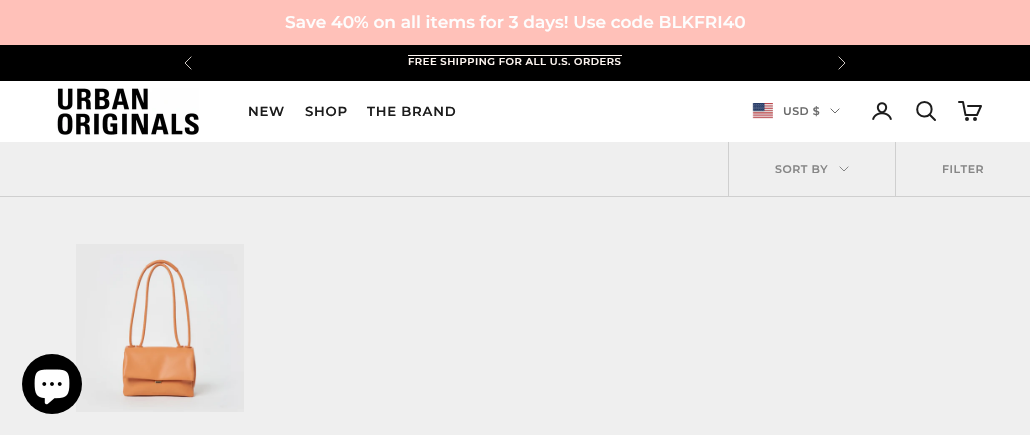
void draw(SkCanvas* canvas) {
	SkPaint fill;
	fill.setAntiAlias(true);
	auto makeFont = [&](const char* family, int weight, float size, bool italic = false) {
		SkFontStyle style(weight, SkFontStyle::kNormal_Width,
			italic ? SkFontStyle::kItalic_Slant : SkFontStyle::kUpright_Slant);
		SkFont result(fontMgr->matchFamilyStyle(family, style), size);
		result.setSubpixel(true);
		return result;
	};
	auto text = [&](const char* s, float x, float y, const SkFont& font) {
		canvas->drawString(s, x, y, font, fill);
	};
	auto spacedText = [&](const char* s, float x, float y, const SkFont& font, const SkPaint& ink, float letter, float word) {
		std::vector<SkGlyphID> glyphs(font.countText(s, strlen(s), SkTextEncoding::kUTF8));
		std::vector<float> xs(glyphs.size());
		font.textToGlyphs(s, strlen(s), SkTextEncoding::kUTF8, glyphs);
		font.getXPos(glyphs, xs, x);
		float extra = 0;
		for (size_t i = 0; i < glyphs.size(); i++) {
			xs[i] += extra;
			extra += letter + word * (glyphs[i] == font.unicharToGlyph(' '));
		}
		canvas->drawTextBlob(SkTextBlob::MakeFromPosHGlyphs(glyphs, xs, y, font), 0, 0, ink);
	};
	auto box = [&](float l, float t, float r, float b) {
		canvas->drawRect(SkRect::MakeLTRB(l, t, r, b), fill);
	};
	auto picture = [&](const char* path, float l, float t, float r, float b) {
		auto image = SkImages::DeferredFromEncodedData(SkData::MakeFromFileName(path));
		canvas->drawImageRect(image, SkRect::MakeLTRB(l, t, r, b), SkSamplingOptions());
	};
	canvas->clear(0xFFEFEFEF);
	fill.setColor(0xFFFFC1B9);
	box(0, 0, 1030, 45);
	fill.setColor(0xFF000000);
	box(0, 45, 1030, 81);
	fill.setStyle(SkPaint::kStroke_Style);
	fill.setStrokeWidth(0.8f);
	fill.setStrokeCap(SkPaint::kSquare_Cap);
	fill.setColor(0xFFFFF7F2);
	canvas->drawPath(SkPathBuilder().moveTo(191, 57).lineTo(185, 63).lineTo(191, 69).detach(), fill);
	fill.setStyle(SkPaint::kFill_Style);
	box(408, 55, 622, 56);
	fill.setStyle(SkPaint::kStroke_Style);
	canvas->drawPath(SkPathBuilder().moveTo(839, 69).lineTo(845, 63).lineTo(839, 57).detach(), fill);
	fill.setStyle(SkPaint::kFill_Style);
	fill.setColor(0xFFFFFFFF);
	box(0, 81, 1030, 142);
	picture("image0.png", 56, 88, 199, 135);
	picture("image1.png", 752, 103, 773, 119);
	fill.setStyle(SkPaint::kStroke_Style);
	fill.setStrokeWidth(1);
	fill.setColor(0xFF6B6B6B);
	canvas->drawPath(SkPathBuilder().moveTo(831, 109).lineTo(835, 113).lineTo(839, 109).detach(), fill);
	picture("image2.png", 872, 102, 892, 120);
	fill.setStrokeWidth(2);
	fill.setStrokeCap(SkPaint::kButt_Cap);
	fill.setColor(0xFF1C1C1C);
	canvas->drawPath(SkPathBuilder().moveTo(924.5f, 102).cubicTo(914.5f, 102, 915, 117, 924.5f, 116.5f).cubicTo(934, 116.5f, 934, 102, 924.5f, 102).close().detach(), fill);
	fill.setStrokeCap(SkPaint::kRound_Cap);
	canvas->drawPath(SkPathBuilder().moveTo(930, 115).lineTo(935, 120).detach(), fill);
	fill.setStrokeJoin(SkPaint::kRound_Join);
	canvas->drawPath(SkPathBuilder().moveTo(968, 106).lineTo(981, 106).lineTo(977, 115).lineTo(965.5f, 115).lineTo(963, 102).lineTo(959, 102).detach(), fill);
	fill.setStrokeCap(SkPaint::kButt_Cap);
	fill.setStrokeJoin(SkPaint::kMiter_Join);
	canvas->drawCircle(967, 119, 1, fill);
	canvas->drawCircle(975, 119, 1, fill);
	fill.setStyle(SkPaint::kFill_Style);
	fill.setColor(0xFFCFCFCF);
	box(0, 196, 1030, 197);
	box(728, 142, 729, 196);
	fill.setStyle(SkPaint::kStroke_Style);
	fill.setStrokeWidth(1);
	fill.setStrokeCap(SkPaint::kSquare_Cap);
	fill.setColor(0xFF868686);
	canvas->drawPath(SkPathBuilder().moveTo(840, 167).lineTo(844, 171).lineTo(848, 167).detach(), fill);
	fill.setStyle(SkPaint::kFill_Style);
	fill.setColor(0xFFCFCFCF);
	box(895, 142, 896, 196);
	picture("image3.png", 76, 244, 244, 412);
	fill.setColor(0xFF000000);
	canvas->drawCircle(52, 384, 30, fill);
	picture("image4.png", 34, 369, 70, 405);
	auto font1 = makeFont("Montserrat", 600, 17);
	fill.setColor(0xFFFDFDFD);
	text("Save 40% on all items for 3 days! Use code BLKFRI40", 285, 28, font1);
	auto font2 = makeFont("Montserrat", 600, 10);
	fill.setColor(0xFFFFF7F2);
	spacedText("FREE SHIPPING FOR ALL U.S. ORDERS", 408, 65, font2, fill, 0.5f, 0);
	auto font3 = makeFont("Montserrat", 600, 13.25f);
	fill.setColor(0xFF1C1C1C);
	spacedText("NEW", 248, 116, font3, fill, 0.75f, 0);
	spacedText("SHOP", 305, 116, font3, fill, 0.75f, 0);
	spacedText("THE BRAND", 367, 116, font3, fill, 0.75f, 0);
	auto font4 = makeFont("Montserrat", 600, 11);
	fill.setColor(0xFF6B6B6B);
	spacedText("USD $", 783, 115, font4, fill, 0.5f, 0);
	fill.setColor(0xFF868686);
	spacedText("SORT BY", 775, 173, font4, fill, 0.5f, 0);
	spacedText("FILTER", 942, 173, font4, fill, 0.5f, 0);
}
